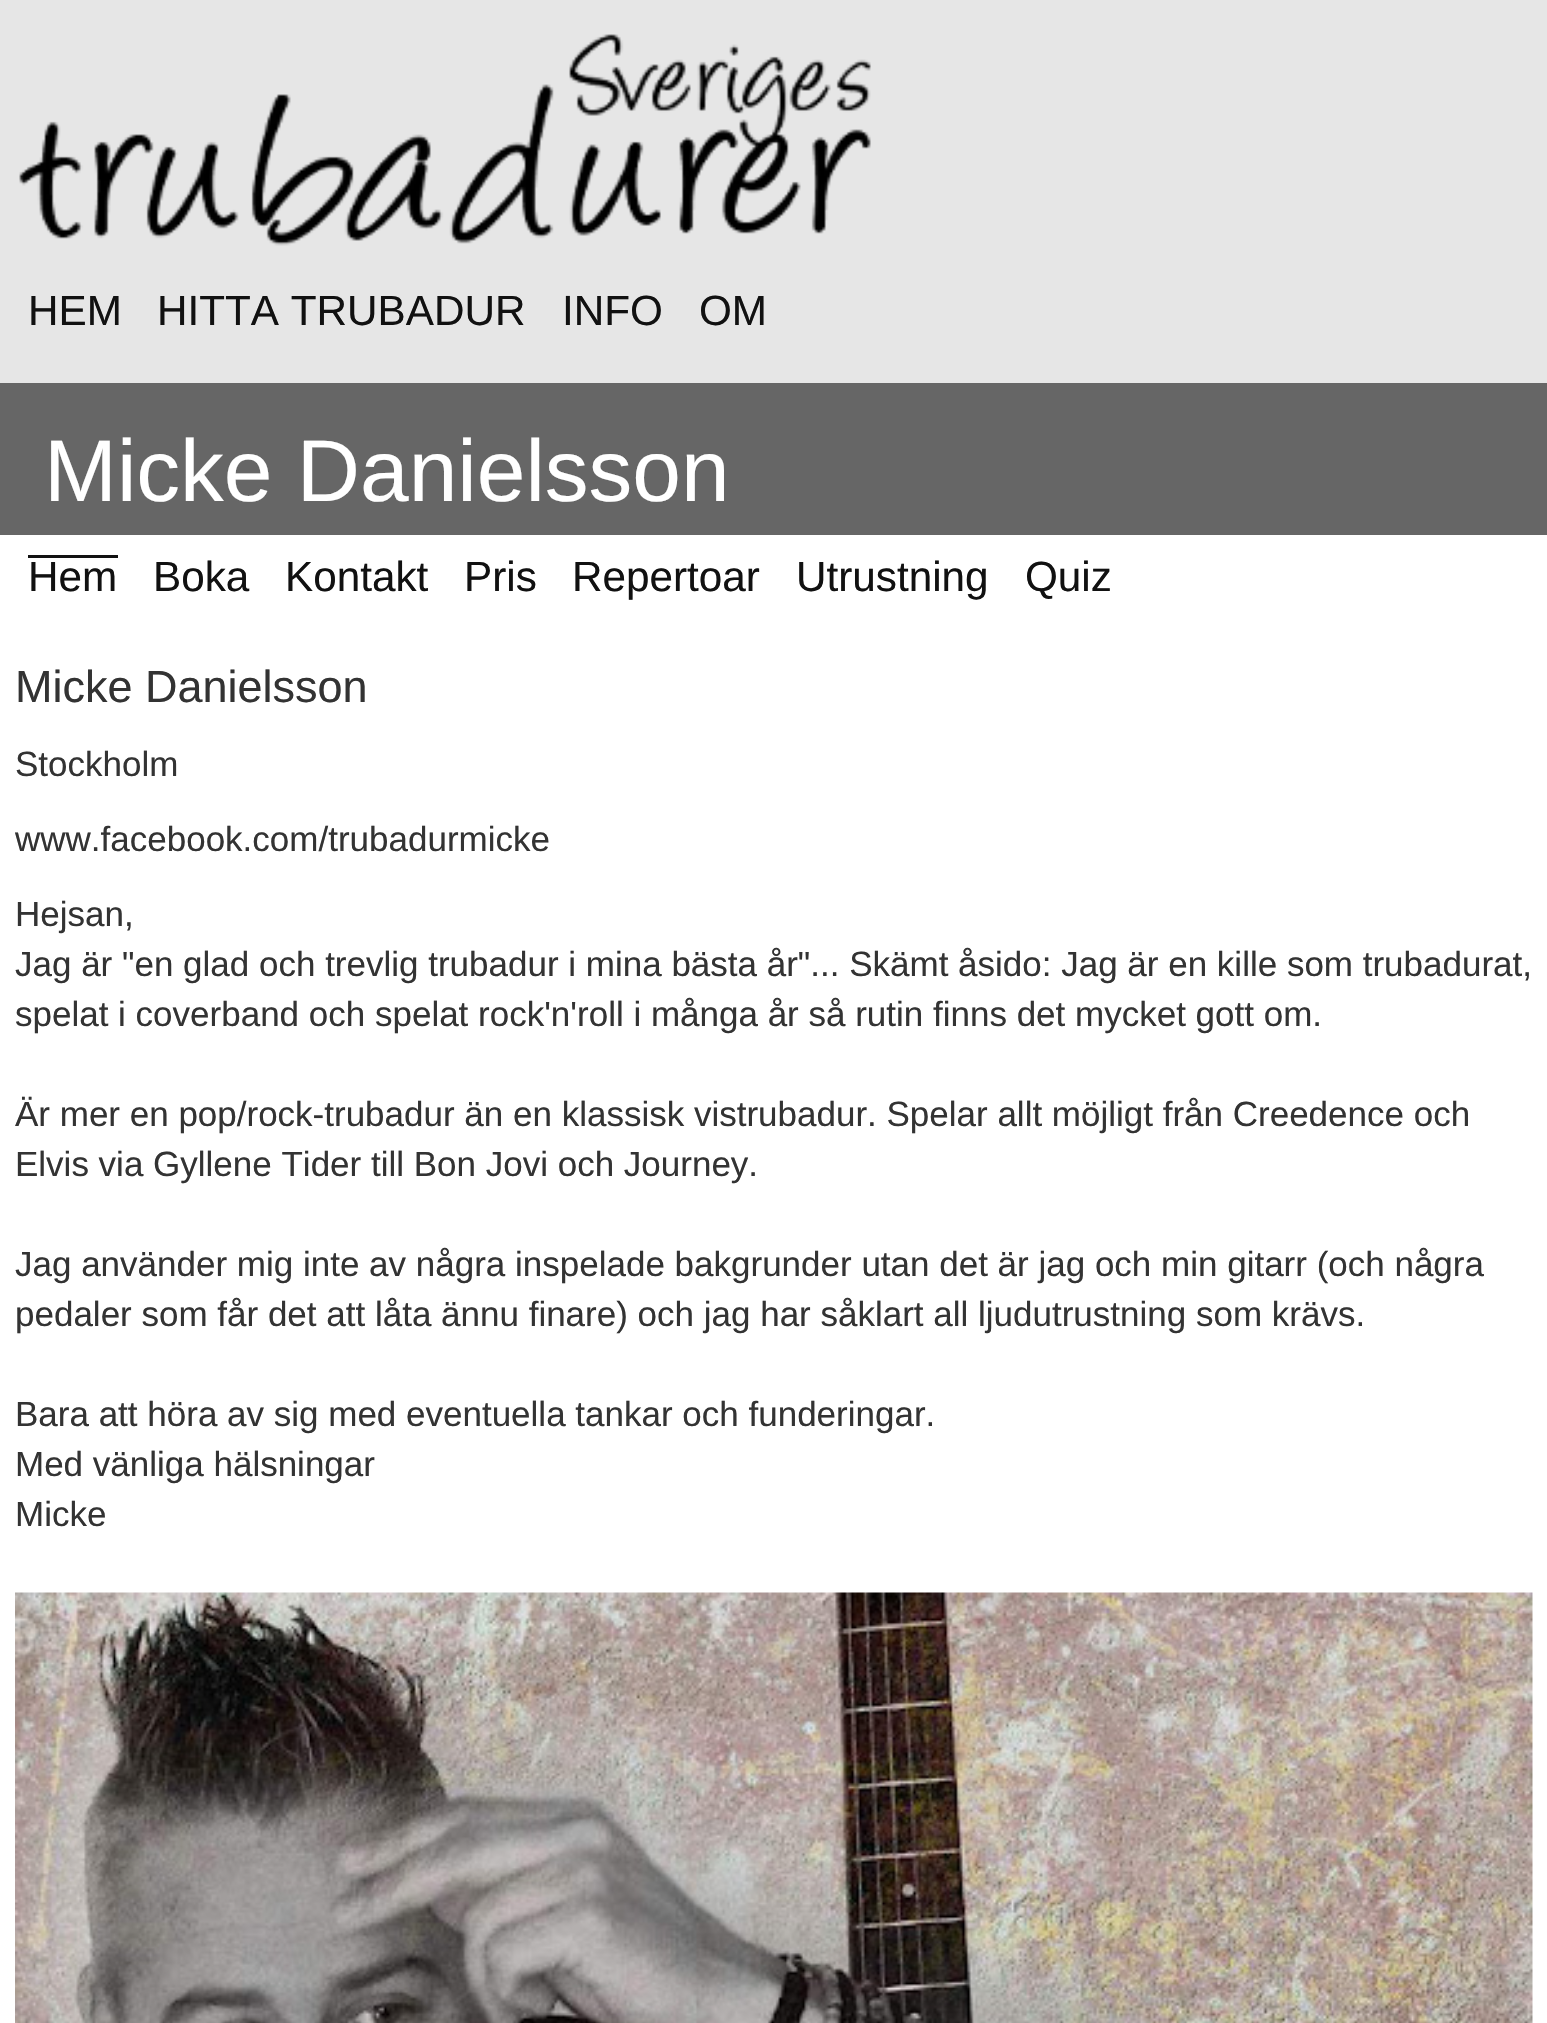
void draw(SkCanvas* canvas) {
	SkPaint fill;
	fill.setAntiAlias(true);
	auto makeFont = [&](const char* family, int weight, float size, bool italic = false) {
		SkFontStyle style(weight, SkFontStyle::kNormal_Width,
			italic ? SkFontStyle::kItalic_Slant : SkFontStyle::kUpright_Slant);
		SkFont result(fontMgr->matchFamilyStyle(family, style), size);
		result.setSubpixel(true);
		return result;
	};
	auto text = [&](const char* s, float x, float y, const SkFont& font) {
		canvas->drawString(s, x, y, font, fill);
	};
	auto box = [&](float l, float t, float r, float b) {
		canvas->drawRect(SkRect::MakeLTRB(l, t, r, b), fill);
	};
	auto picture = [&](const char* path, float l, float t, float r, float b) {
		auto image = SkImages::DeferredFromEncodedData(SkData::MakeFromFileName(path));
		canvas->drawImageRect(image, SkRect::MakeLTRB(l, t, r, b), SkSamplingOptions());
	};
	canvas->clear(0xFFFFFFFF);
	fill.setColor(0xFFE6E6E6);
	box(0, 0, 1547, 383);
	picture("image0.png", 19, 34, 871, 246);
	fill.setColor(0xFF666666);
	box(0, 383, 1547, 535);
	fill.setColor(0xFF111111);
	box(28, 555, 118, 558);
	picture("image1.png", 15, 1592, 1533, 2023);
	auto font1 = makeFont("Liberation Sans", 400, 42.25f);
	text("HEM", 28, 325, font1);
	text("HITTA TRUBADUR", 157, 325, font1);
	text("INFO", 562, 325, font1);
	text("OM", 699, 325, font1);
	auto font2 = makeFont("Liberation Sans", 400, 87.5f);
	fill.setColor(0xFFFFFFFF);
	text("Micke Danielsson", 44, 501, font2);
	fill.setColor(0xFF111111);
	text("Hem", 28, 591, font1);
	text("Boka", 153, 591, font1);
	text("Kontakt", 285, 591, font1);
	text("Pris", 464, 591, font1);
	text("Repertoar", 572, 591, font1);
	text("Utrustning", 796, 591, font1);
	text("Quiz", 1025, 591, font1);
	auto font3 = makeFont("Liberation Sans", 400, 45);
	fill.setColor(0xFF333333);
	text("Micke Danielsson", 15, 702, font3);
	auto font4 = makeFont("Liberation Sans", 400, 35);
	text("Stockholm", 15, 776, font4);
	text("www.facebook.com/trubadurmicke", 15, 851, font4);
	text("Hejsan,", 15, 926, font4);
	text("Jag är \"en glad och trevlig trubadur i mina bästa år\"... Skämt åsido: Jag är en kille som trubadurat,", 15, 976, font4);
	text("spelat i coverband och spelat rock'n'roll i många år så rutin finns det mycket gott om.", 15, 1026, font4);
	text("Är mer en pop/rock-trubadur än en klassisk vistrubadur. Spelar allt möjligt från Creedence och", 15, 1126, font4);
	text("Elvis via Gyllene Tider till Bon Jovi och Journey.", 15, 1176, font4);
	text("Jag använder mig inte av några inspelade bakgrunder utan det är jag och min gitarr (och några", 15, 1276, font4);
	text("pedaler som får det att låta ännu finare) och jag har såklart all ljudutrustning som krävs.", 15, 1326, font4);
	text("Bara att höra av sig med eventuella tankar och funderingar.", 15, 1426, font4);
	text("Med vänliga hälsningar", 15, 1476, font4);
	text("Micke", 15, 1526, font4);
}
